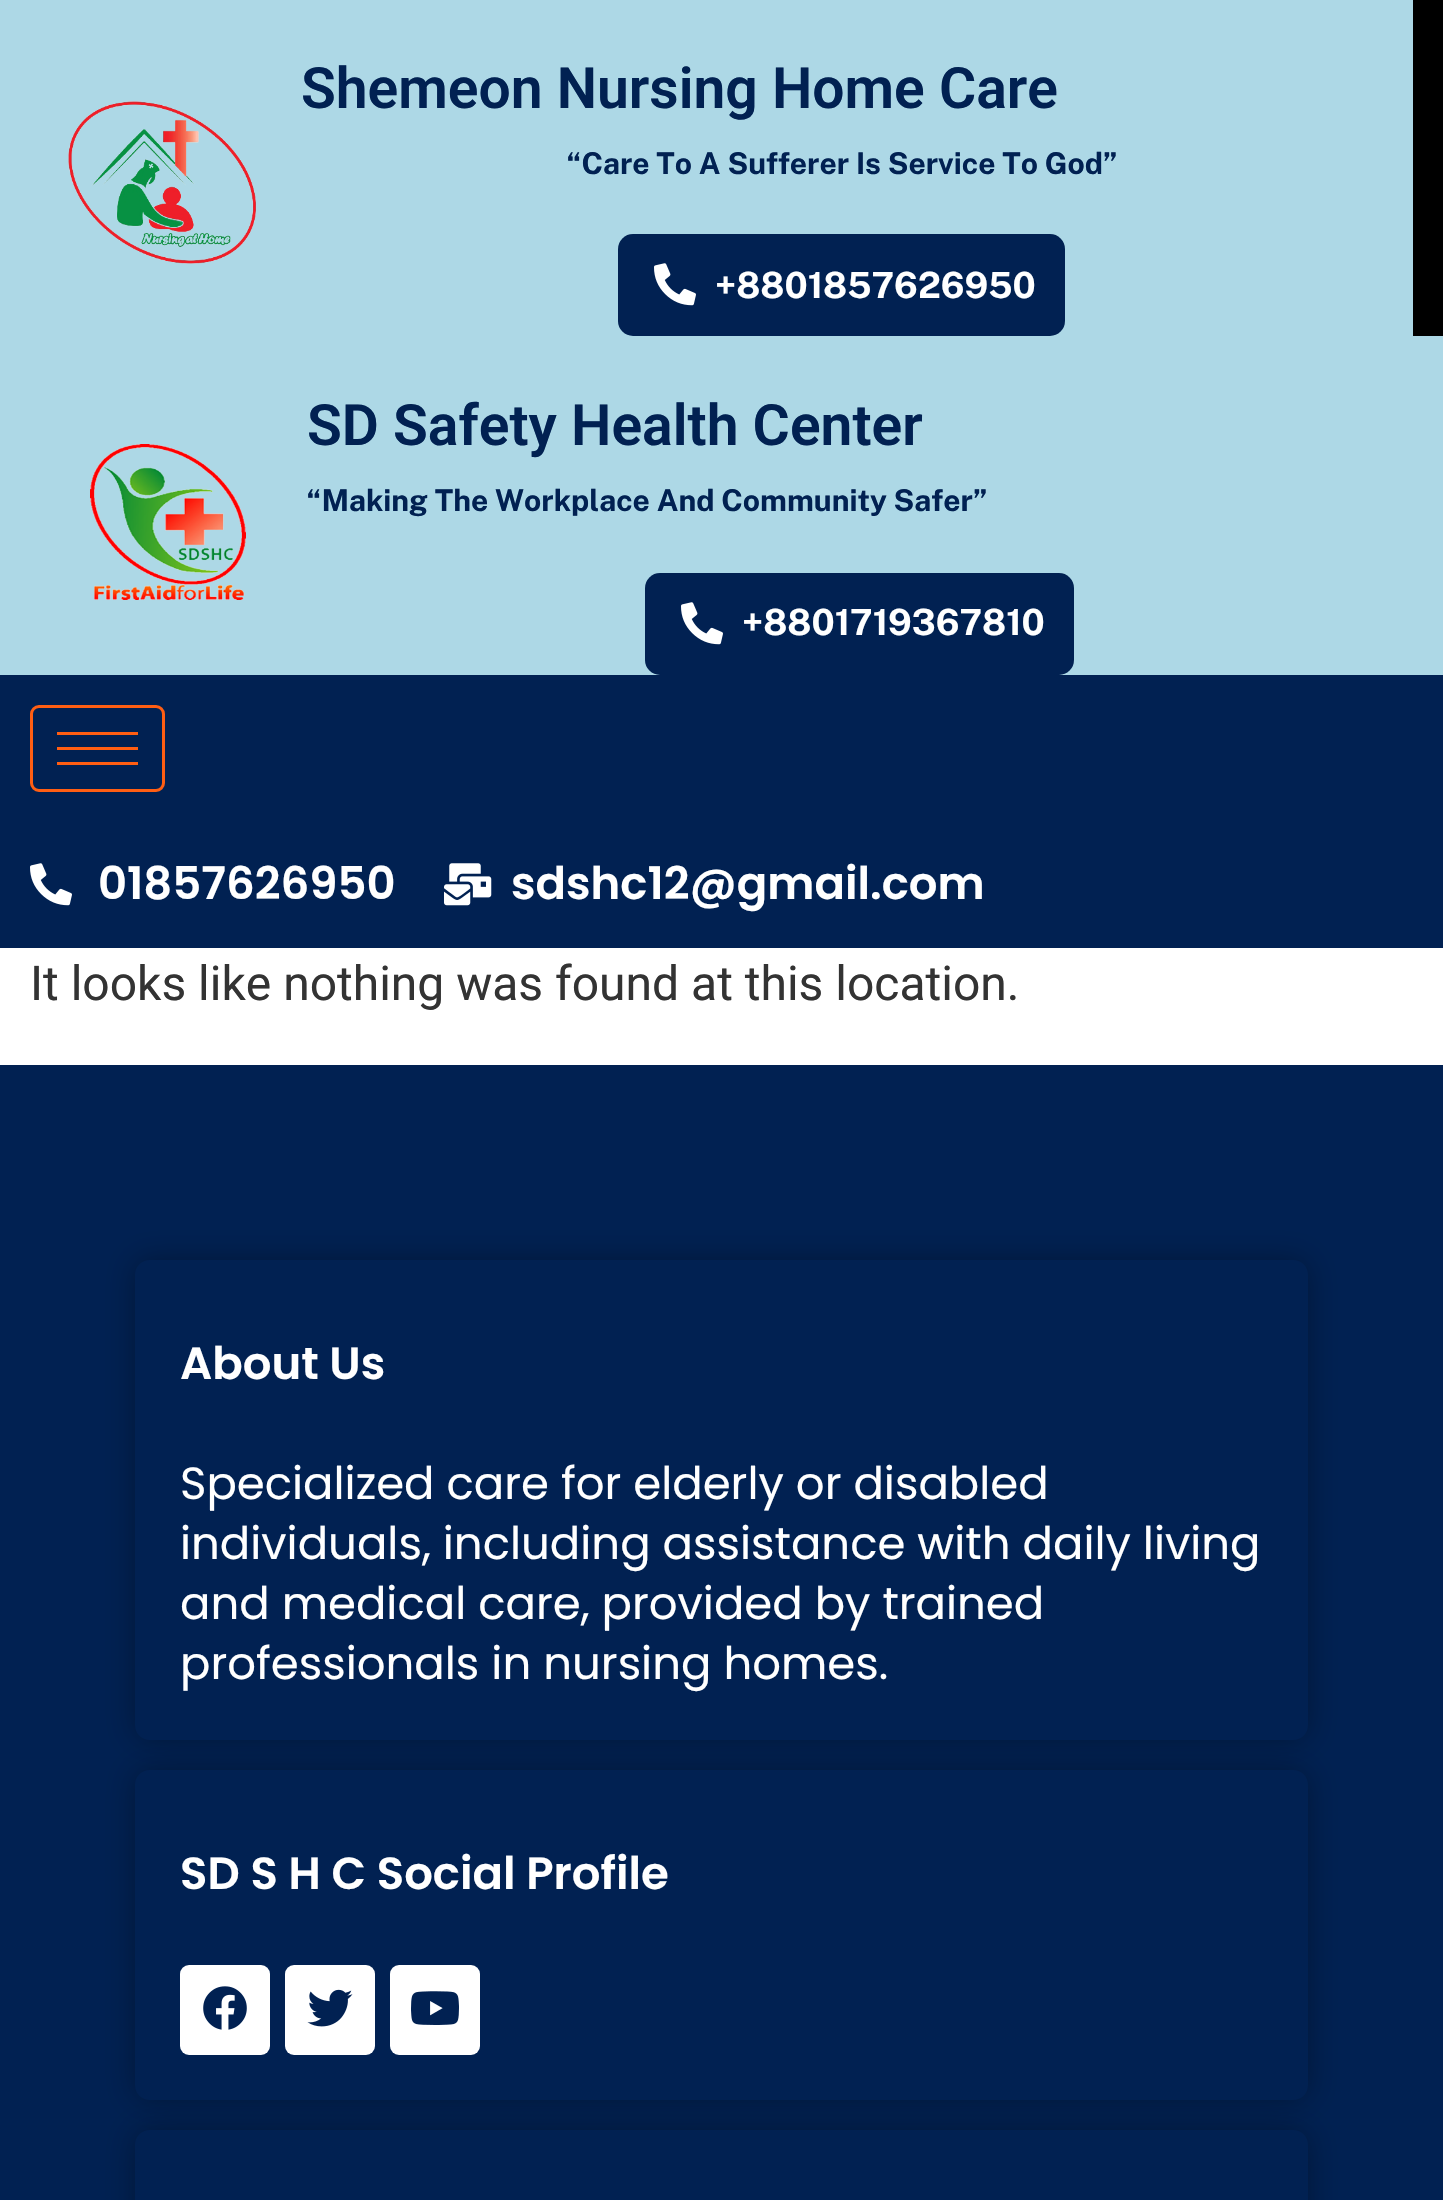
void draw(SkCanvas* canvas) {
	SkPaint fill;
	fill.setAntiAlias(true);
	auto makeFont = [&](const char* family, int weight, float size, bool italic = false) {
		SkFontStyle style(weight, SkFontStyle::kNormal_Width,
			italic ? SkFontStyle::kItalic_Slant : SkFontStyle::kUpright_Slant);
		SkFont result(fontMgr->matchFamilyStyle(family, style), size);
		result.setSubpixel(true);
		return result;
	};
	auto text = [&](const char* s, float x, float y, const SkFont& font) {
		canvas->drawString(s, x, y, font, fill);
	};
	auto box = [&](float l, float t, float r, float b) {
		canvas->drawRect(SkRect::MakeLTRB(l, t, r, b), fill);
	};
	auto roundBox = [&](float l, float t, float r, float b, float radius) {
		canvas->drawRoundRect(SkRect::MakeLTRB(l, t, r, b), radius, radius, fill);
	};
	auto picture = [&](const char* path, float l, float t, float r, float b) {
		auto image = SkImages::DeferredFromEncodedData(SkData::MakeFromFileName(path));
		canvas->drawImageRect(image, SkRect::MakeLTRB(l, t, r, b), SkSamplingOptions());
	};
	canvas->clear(0xFFFFFFFF);
	fill.setColor(0xFFADD8E6);
	box(0, 0, 1443, 675);
	fill.setColor(0xFF000000);
	box(1413, 0, 1443, 336);
	picture("image0.png", 68, 101, 257, 264);
	fill.setColor(0xFF012152);
	roundBox(618, 234, 1065, 336, 15);
	picture("image1.png", 654, 263, 696, 306);
	picture("image2.png", 90, 444, 246, 600);
	roundBox(645, 573, 1074, 675, 15);
	picture("image1.png", 681, 602, 723, 645);
	box(0, 675, 1443, 948);
	fill.setStyle(SkPaint::kStroke_Style);
	fill.setStrokeWidth(3);
	fill.setColor(0xFFFF5E13);
	canvas->drawRoundRect(SkRect::MakeLTRB(31.5f, 706.5f, 163.5f, 790.5f), 7.5f, 7.5f, fill);
	fill.setStyle(SkPaint::kFill_Style);
	box(57, 732, 138, 735);
	box(57, 747, 138, 750);
	box(57, 762, 138, 765);
	picture("image1.png", 30, 863, 72, 906);
	picture("image3.png", 444, 863, 492, 906);
	fill.setColor(0xFF012152);
	box(0, 1065, 1443, 2200);
	canvas->save();
	canvas->clipPath(SkPathBuilder(SkPathFillType::kEvenOdd).moveTo(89, 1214).lineTo(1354, 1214).lineTo(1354, 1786).lineTo(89, 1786).close().moveTo(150, 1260).lineTo(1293, 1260).cubicTo(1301.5f, 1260, 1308, 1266.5f, 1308, 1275).lineTo(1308, 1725).cubicTo(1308, 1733.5f, 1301.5f, 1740, 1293, 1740).lineTo(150, 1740).cubicTo(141.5f, 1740, 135, 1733.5f, 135, 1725).lineTo(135, 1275).cubicTo(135, 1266.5f, 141.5f, 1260, 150, 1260).close().detach(), true);
	fill.setColor(0x52000000);
	fill.setMaskFilter(SkMaskFilter::MakeBlur(kNormal_SkBlurStyle, 15));
	canvas->drawRoundRect(SkRect::MakeLTRB(135, 1260, 1308, 1740), 15, 15, fill);
	fill.setMaskFilter(nullptr);
	canvas->restore();
	canvas->save();
	canvas->clipPath(SkPathBuilder(SkPathFillType::kEvenOdd).moveTo(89, 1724).lineTo(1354, 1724).lineTo(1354, 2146).lineTo(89, 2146).close().moveTo(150, 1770).lineTo(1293, 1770).cubicTo(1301.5f, 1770, 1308, 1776.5f, 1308, 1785).lineTo(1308, 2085).cubicTo(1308, 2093.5f, 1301.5f, 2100, 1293, 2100).lineTo(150, 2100).cubicTo(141.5f, 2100, 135, 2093.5f, 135, 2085).lineTo(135, 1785).cubicTo(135, 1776.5f, 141.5f, 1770, 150, 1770).close().detach(), true);
	fill.setMaskFilter(SkMaskFilter::MakeBlur(kNormal_SkBlurStyle, 15));
	canvas->drawRoundRect(SkRect::MakeLTRB(135, 1770, 1308, 2100), 15, 15, fill);
	fill.setMaskFilter(nullptr);
	canvas->restore();
	fill.setColor(0xFFFFFFFF);
	roundBox(180, 1965, 270, 2055, 9);
	picture("image4.png", 203, 1986, 247, 2030);
	roundBox(285, 1965, 375, 2055, 9);
	picture("image5.png", 307, 1989, 353, 2027);
	roundBox(390, 1965, 480, 2055, 9);
	picture("image6.png", 411, 1991, 459, 2025);
	canvas->save();
	canvas->clipPath(SkPathBuilder(SkPathFillType::kEvenOdd).moveTo(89, 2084).lineTo(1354, 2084).lineTo(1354, 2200).lineTo(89, 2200).close().moveTo(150, 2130).lineTo(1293, 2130).cubicTo(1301.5f, 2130, 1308, 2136.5f, 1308, 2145).lineTo(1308, 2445).cubicTo(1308, 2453.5f, 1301.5f, 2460, 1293, 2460).lineTo(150, 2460).cubicTo(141.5f, 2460, 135, 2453.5f, 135, 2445).lineTo(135, 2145).cubicTo(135, 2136.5f, 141.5f, 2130, 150, 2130).close().detach(), true);
	fill.setColor(0x52000000);
	fill.setMaskFilter(SkMaskFilter::MakeBlur(kNormal_SkBlurStyle, 15));
	canvas->drawRoundRect(SkRect::MakeLTRB(135, 2130, 1308, 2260), 15, 15, fill);
	fill.setMaskFilter(nullptr);
	canvas->restore();
	auto font1 = makeFont("Roboto", 600, 57);
	fill.setColor(0xFF012152);
	text("Shemeon Nursing Home Care", 301, 108, font1);
	auto font2 = makeFont("Public Sans", 700, 30);
	text("“Care To A Sufferer Is Service To God”", 567, 174, font2);
	auto font3 = makeFont("Public Sans", 700, 36);
	fill.setColor(0xFFFFFFFF);
	text("+8801857626950", 715, 298, font3);
	fill.setColor(0xFF012152);
	text("SD Safety Health Center", 307, 445, font1);
	text("“Making The Workplace And Community Safer”", 307, 511, font2);
	fill.setColor(0xFFFFFFFF);
	text("+8801719367810", 742, 635, font3);
	auto font4 = makeFont("Poppins", 600, 45);
	text("01857626950", 98, 899, font4);
	text("sdshc12@gmail.com", 511, 899, font4);
	auto font5 = makeFont("Roboto", 400, 48);
	fill.setColor(0xFF333333);
	text("It looks like nothing was found at this location.", 30, 1000, font5);
	fill.setColor(0xFFFFFFFF);
	text("About Us", 180, 1379, font4);
	auto font6 = makeFont("Poppins", 400, 45);
	text("Specialized care for elderly or disabled", 180, 1499, font6);
	text("individuals, including assistance with daily living", 180, 1559, font6);
	text("and medical care, provided by trained", 180, 1619, font6);
	text("professionals in nursing homes.", 180, 1679, font6);
	text("SD S H C Social Profile", 180, 1889, font4);
}
